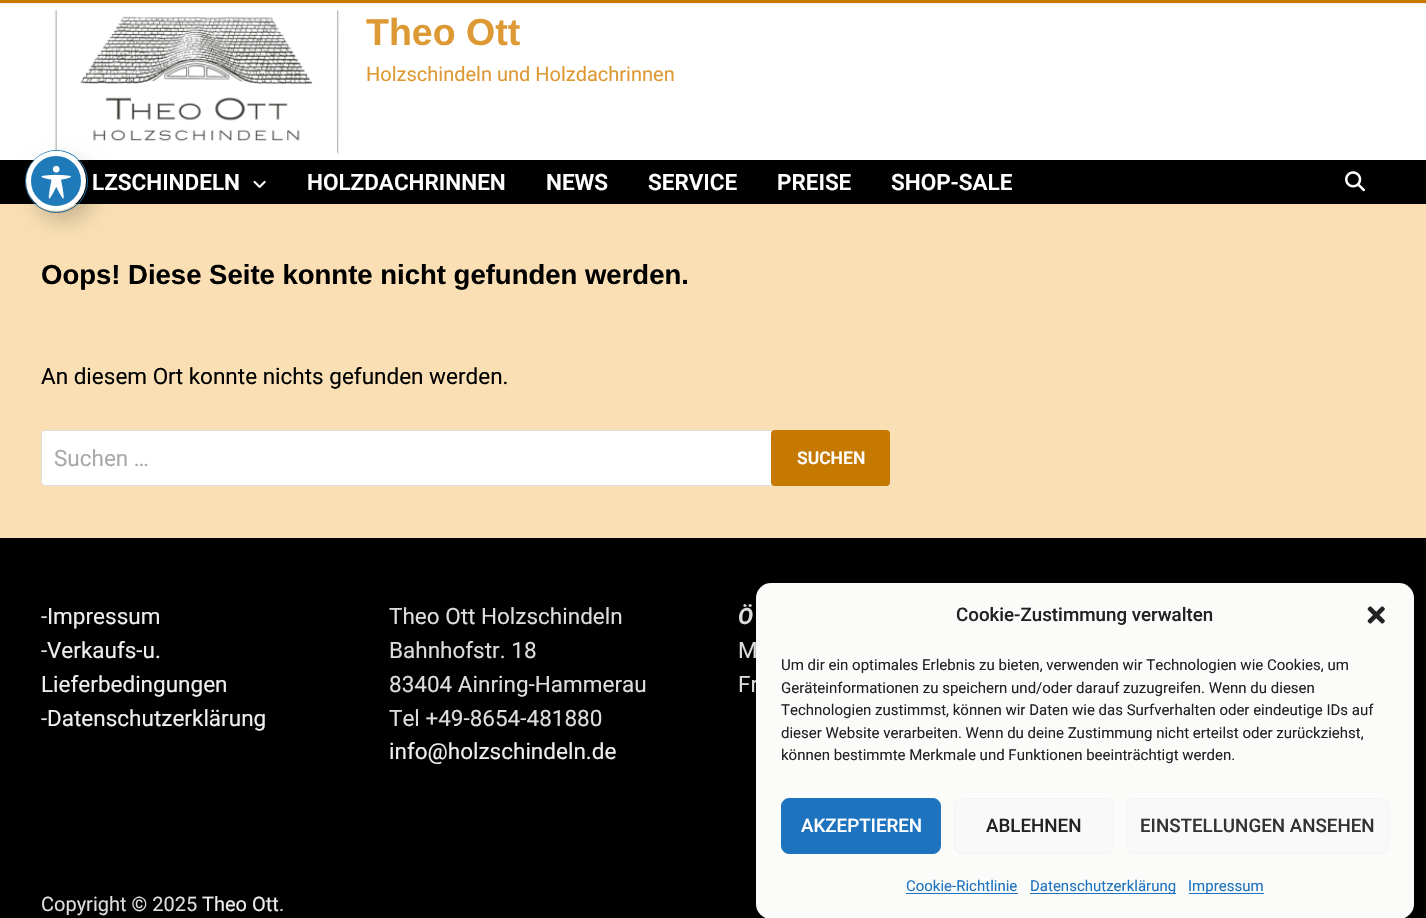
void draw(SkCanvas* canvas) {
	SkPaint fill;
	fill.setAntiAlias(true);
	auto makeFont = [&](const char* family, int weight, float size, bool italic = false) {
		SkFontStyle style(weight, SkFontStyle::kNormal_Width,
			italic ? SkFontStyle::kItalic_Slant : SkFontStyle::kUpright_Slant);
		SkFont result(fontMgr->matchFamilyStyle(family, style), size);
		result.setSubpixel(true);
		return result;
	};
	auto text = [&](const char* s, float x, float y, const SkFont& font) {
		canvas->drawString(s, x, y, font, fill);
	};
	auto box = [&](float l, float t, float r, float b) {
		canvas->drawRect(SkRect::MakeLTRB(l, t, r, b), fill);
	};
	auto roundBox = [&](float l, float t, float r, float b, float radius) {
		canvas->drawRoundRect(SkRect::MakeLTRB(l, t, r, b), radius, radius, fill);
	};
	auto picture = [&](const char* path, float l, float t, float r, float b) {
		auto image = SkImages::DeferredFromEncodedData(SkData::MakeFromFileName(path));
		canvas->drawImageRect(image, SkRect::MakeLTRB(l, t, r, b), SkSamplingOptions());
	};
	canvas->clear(0xFFF9DFB3);
	fill.setColor(0xFFC67900);
	box(0, 0, 1426, 3);
	fill.setColor(0xFFEEEEEE);
	box(0, 3, 1426, 4);
	fill.setColor(0xFFFFFFFF);
	box(0, 4, 1426, 160);
	picture("image0.png", 54, 10, 339, 154);
	fill.setColor(0xFF000000);
	box(0, 160, 1426, 204);
	picture("image1.png", 253, 180, 266, 188);
	picture("image2.png", 1345, 171, 1365, 192);
	fill.setColor(0xFFFFFFFF);
	canvas->drawRoundRect(SkRect::MakeLTRB(41.5f, 430.5f, 889.5f, 485.5f), 3.5f, 3.5f, fill);
	fill.setStyle(SkPaint::kStroke_Style);
	fill.setStrokeWidth(1);
	fill.setColor(0xFFDDDDDD);
	canvas->drawRoundRect(SkRect::MakeLTRB(41.5f, 430.5f, 889.5f, 485.5f), 3.5f, 3.5f, fill);
	fill.setStyle(SkPaint::kFill_Style);
	fill.setColor(0xFFC67900);
	roundBox(771, 430, 890, 486, 4);
	fill.setColor(0xFF000000);
	box(0, 538, 1426, 918);
	fill.setStyle(SkPaint::kStroke_Style);
	fill.setColor(0xFF1E7AB9);
	canvas->drawCircle(56.5f, 181.5f, 31, fill);
	fill.setStyle(SkPaint::kFill_Style);
	fill.setColor(0x33000000);
	fill.setMaskFilter(SkMaskFilter::MakeBlur(kNormal_SkBlurStyle, 10));
	canvas->drawRoundRect(SkRect::MakeLTRB(34, 161, 94, 221), 30, 30, fill);
	fill.setMaskFilter(nullptr);
	fill.setColor(0xFF1E7AB9);
	canvas->drawCircle(56, 181, 27.5f, fill);
	fill.setStyle(SkPaint::kStroke_Style);
	fill.setStrokeWidth(5);
	fill.setColor(0xFFFFFFFF);
	canvas->drawCircle(56, 181, 27.5f, fill);
	picture("image3.png", 41, 165, 71, 199);
	fill.setStyle(SkPaint::kFill_Style);
	fill.setColor(0x3B000000);
	fill.setMaskFilter(SkMaskFilter::MakeBlur(kNormal_SkBlurStyle, 4));
	canvas->drawRoundRect(SkRect::MakeLTRB(756, 590, 1414, 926), 15, 15, fill);
	fill.setMaskFilter(nullptr);
	fill.setColor(0x30000000);
	fill.setMaskFilter(SkMaskFilter::MakeBlur(kNormal_SkBlurStyle, 12.5f));
	canvas->drawRoundRect(SkRect::MakeLTRB(756, 595, 1414, 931), 15, 15, fill);
	fill.setMaskFilter(nullptr);
	auto font1 = makeFont("Liberation Sans", 700, 37.5f);
	fill.setColor(0xFFDD9933);
	text("Theo Ott", 366, 45, font1);
	auto font2 = makeFont("Roboto", 400, 20);
	text("Holzschindeln und Holzdachrinnen", 366, 81, font2);
	auto font3 = makeFont("Roboto", 600, 22.5f);
	fill.setColor(0xFFFFFFFF);
	text("LZSCHINDELN", 92, 190, font3);
	text("HOLZDACHRINNEN", 307, 190, font3);
	text("NEWS", 546, 190, font3);
	text("SERVICE", 648, 190, font3);
	text("PREISE", 777, 190, font3);
	text("SHOP-SALE", 891, 190, font3);
	auto font4 = makeFont("Liberation Sans", 700, 27.5f);
	fill.setColor(0xFF000000);
	text("Oops! Diese Seite konnte nicht gefunden werden.", 41, 284, font4);
	auto font5 = makeFont("Roboto", 400, 22.5f);
	text("An diesem Ort konnte nichts gefunden werden.", 41, 384, font5);
	fill.setColor(0xFFAAAAAA);
	text("Suchen …", 54, 466, font5);
	auto font6 = makeFont("Roboto", 600, 17.5f);
	fill.setColor(0xFFFFFFFF);
	text("SUCHEN", 797, 464, font6);
	fill.setColor(0xFFDDDDDD);
	text("-", 41, 624, font5);
	fill.setColor(0xFFEEEEEE);
	text("Impressum", 47, 624, font5);
	fill.setColor(0xFFDDDDDD);
	text("-", 41, 658, font5);
	fill.setColor(0xFFEEEEEE);
	text("Verkaufs-u.", 47, 658, font5);
	text("Lieferbedingungen", 41, 692, font5);
	fill.setColor(0xFFDDDDDD);
	text("-", 41, 726, font5);
	fill.setColor(0xFFEEEEEE);
	text("Datenschutzerklärung", 47, 726, font5);
	fill.setColor(0xFFDDDDDD);
	text("Theo Ott Holzschindeln", 389, 624, font5);
	text("Bahnhofstr. 18", 389, 658, font5);
	text("83404 Ainring-Hammerau", 389, 692, font5);
	text("Tel +49-8654-481880", 389, 726, font5);
	fill.setColor(0xFFEEEEEE);
	text("info@holzschindeln.de", 389, 759, font5);
	auto font7 = makeFont("Roboto", 700, 22.5f, true);
	fill.setColor(0xFFDDDDDD);
	text("Ö", 738, 624, font7);
	text("M", 738, 658, font5);
	text("Fr", 738, 692, font5);
	text("Copyright © 2025", 41, 911, font2);
	fill.setColor(0xFFEEEEEE);
	text("Theo Ott", 202, 911, font2);
	fill.setColor(0xFFDDDDDD);
	text(".", 279, 911, font2);
	fill.setColor(0xFFFBFCFA);
	roundBox(756, 583, 1414, 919, 15);
	auto font8 = makeFont("Roboto", 500, 18.75f);
	fill.setColor(0xFF222222);
	text("Cookie-Zustimmung verwalten", 956, 621, font8);
	picture("image4.png", 1367, 606, 1385, 624);
	auto font9 = makeFont("Roboto", 400, 15);
	text("Um dir ein optimales Erlebnis zu bieten, verwenden wir Technologien wie Cookies, um", 781, 670, font9);
	text("Geräteinformationen zu speichern und/oder darauf zuzugreifen. Wenn du diesen", 781, 693, font9);
	text("Technologien zustimmst, können wir Daten wie das Surfverhalten oder eindeutige IDs auf", 781, 715, font9);
	text("dieser Website verarbeiten. Wenn du deine Zustimmung nicht erteilst oder zurückziehst,", 781, 738, font9);
	text("können bestimmte Merkmale und Funktionen beeinträchtigt werden.", 781, 760, font9);
	fill.setColor(0xFF1E73BE);
	canvas->drawRoundRect(SkRect::MakeLTRB(781.5f, 798.5f, 940.5f, 853.5f), 7.5f, 7.5f, fill);
	fill.setStyle(SkPaint::kStroke_Style);
	fill.setStrokeWidth(1);
	canvas->drawRoundRect(SkRect::MakeLTRB(781.5f, 798.5f, 940.5f, 853.5f), 7.5f, 7.5f, fill);
	fill.setStyle(SkPaint::kFill_Style);
	fill.setColor(0xFFFFFFFF);
	text("AKZEPTIEREN", 801, 832, font8);
	fill.setColor(0xFFF9F9F9);
	canvas->drawRoundRect(SkRect::MakeLTRB(954.5f, 798.5f, 1113.5f, 853.5f), 7.5f, 7.5f, fill);
	fill.setStyle(SkPaint::kStroke_Style);
	fill.setColor(0xFFF2F2F2);
	canvas->drawRoundRect(SkRect::MakeLTRB(954.5f, 798.5f, 1113.5f, 853.5f), 7.5f, 7.5f, fill);
	fill.setStyle(SkPaint::kFill_Style);
	fill.setColor(0xFF222222);
	text("ABLEHNEN", 986, 832, font8);
	fill.setColor(0xFFF9F9F9);
	canvas->drawRoundRect(SkRect::MakeLTRB(1126.5f, 798.5f, 1388.5f, 853.5f), 7.5f, 7.5f, fill);
	fill.setStyle(SkPaint::kStroke_Style);
	fill.setColor(0xFFF2F2F2);
	canvas->drawRoundRect(SkRect::MakeLTRB(1126.5f, 798.5f, 1388.5f, 853.5f), 7.5f, 7.5f, fill);
	fill.setStyle(SkPaint::kFill_Style);
	fill.setColor(0xFF333333);
	text("EINSTELLUNGEN ANSEHEN", 1140, 832, font8);
	fill.setColor(0xFF1E73BE);
	text("Cookie-Richtlinie", 906, 891, font9);
	box(906, 893, 1018, 894);
	box(1030, 893, 1176, 894);
	text("Datenschutzerklärung", 1030, 891, font9);
	box(1189, 893, 1264, 894);
	text("Impressum", 1188, 891, font9);
}
